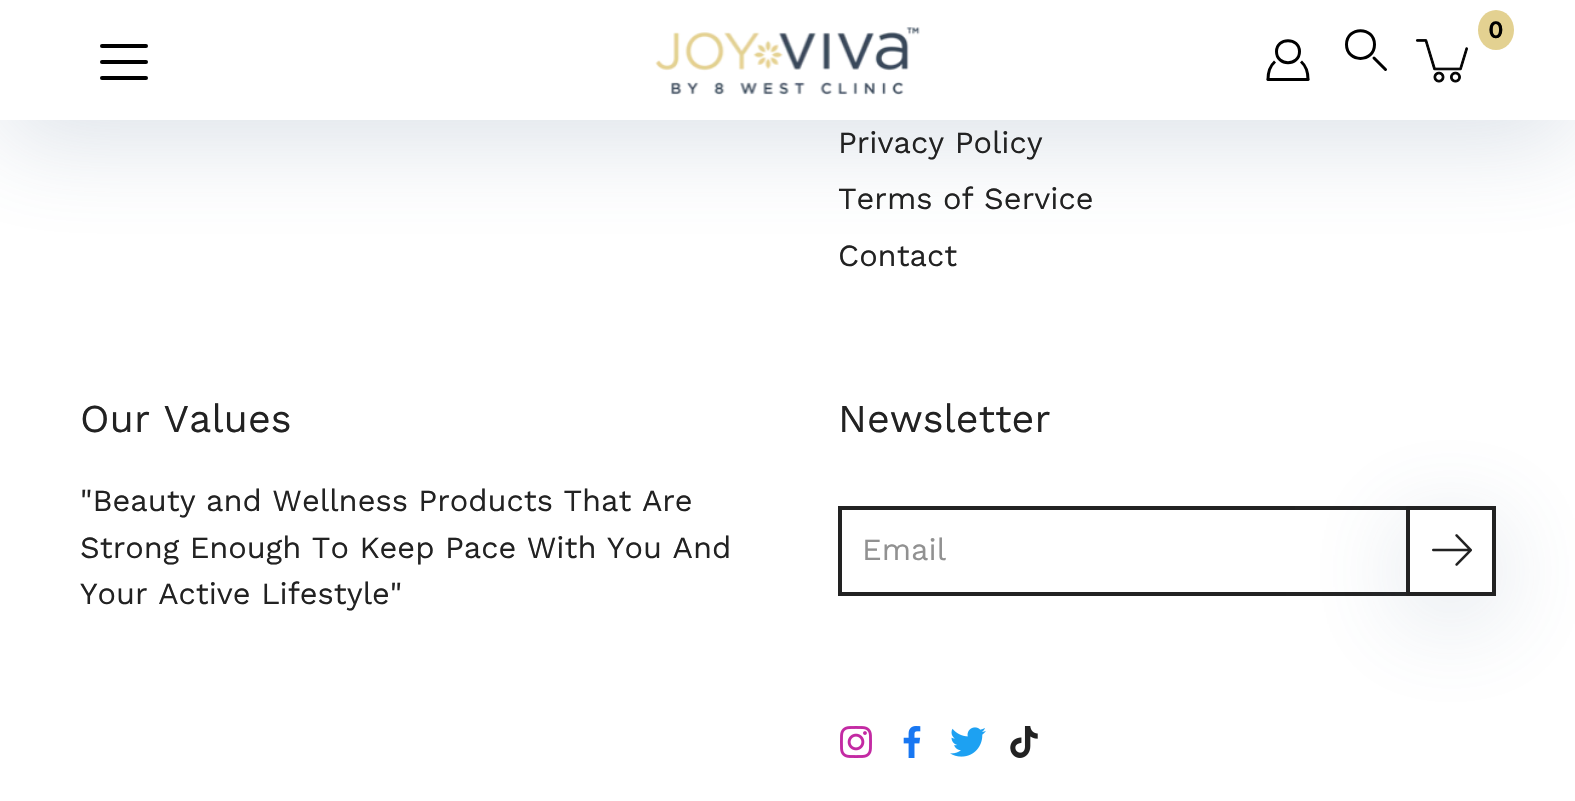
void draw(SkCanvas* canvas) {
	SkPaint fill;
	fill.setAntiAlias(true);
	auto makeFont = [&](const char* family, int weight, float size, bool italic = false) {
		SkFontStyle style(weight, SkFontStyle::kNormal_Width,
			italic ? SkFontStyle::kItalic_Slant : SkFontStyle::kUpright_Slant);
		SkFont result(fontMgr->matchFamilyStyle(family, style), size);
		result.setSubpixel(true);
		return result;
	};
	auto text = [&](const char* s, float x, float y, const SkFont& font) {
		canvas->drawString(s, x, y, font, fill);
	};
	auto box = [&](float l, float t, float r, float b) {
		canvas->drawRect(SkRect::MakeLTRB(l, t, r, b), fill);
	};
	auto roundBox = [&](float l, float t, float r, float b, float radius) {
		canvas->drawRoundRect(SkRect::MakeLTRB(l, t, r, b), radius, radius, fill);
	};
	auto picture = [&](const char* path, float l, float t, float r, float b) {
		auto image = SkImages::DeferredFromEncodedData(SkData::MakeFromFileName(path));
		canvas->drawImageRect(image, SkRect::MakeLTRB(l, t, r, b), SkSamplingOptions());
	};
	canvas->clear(0xFFFFFFFF);
	fill.setColor(0x3349698A);
	fill.setMaskFilter(SkMaskFilter::MakeBlur(kNormal_SkBlurStyle, 50));
	canvas->drawRect(SkRect::MakeLTRB(0, 20, 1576, 140), fill);
	fill.setMaskFilter(nullptr);
	fill.setColor(0xFFFFFFFF);
	box(0, 0, 1575, 120);
	picture("image0.png", 655, 27, 920, 95);
	fill.setColor(0xFF000000);
	roundBox(100, 60, 148, 64, 2);
	roundBox(100, 44, 148, 48, 2);
	roundBox(100, 76, 148, 80, 2);
	fill.setStyle(SkPaint::kStroke_Style);
	fill.setStrokeWidth(3);
	canvas->drawPath(SkPathBuilder().moveTo(1299.5f, 51.5f).cubicTo(1299.5f, 66.5f, 1276.5f, 66.5f, 1276.5f, 51.5f).cubicTo(1276.5f, 37, 1299.5f, 37, 1299.5f, 51.5f).close().detach(), fill);
	fill.setStrokeJoin(SkPaint::kRound_Join);
	canvas->drawPath(SkPathBuilder().moveTo(1275, 61.5f).cubicTo(1270.5f, 65.5f, 1268, 71.5f, 1268, 79.5f).moveTo(1301, 61.5f).cubicTo(1305.5f, 65.5f, 1308, 71.5f, 1308, 79.5f).detach(), fill);
	fill.setStrokeCap(SkPaint::kRound_Cap);
	canvas->drawPath(SkPathBuilder().moveTo(1268, 79.5f).lineTo(1308, 79.5f).detach(), fill);
	fill.setStrokeCap(SkPaint::kButt_Cap);
	fill.setStrokeJoin(SkPaint::kMiter_Join);
	canvas->drawPath(SkPathBuilder().moveTo(1374.5f, 44.5f).cubicTo(1374.5f, 63, 1346.5f, 63, 1346.5f, 44.5f).cubicTo(1346.5f, 26, 1374.5f, 26, 1374.5f, 44.5f).close().detach(), fill);
	fill.setStrokeCap(SkPaint::kRound_Cap);
	canvas->drawPath(SkPathBuilder().moveTo(1374, 58).lineTo(1385.5f, 69.5f).detach(), fill);
	fill.setStyle(SkPaint::kFill_Style);
	fill.setColor(0xFFE3D191);
	canvas->drawOval(SkRect::MakeLTRB(1478, 10, 1514, 50), fill);
	picture("image1.png", 1415, 39, 1468, 83);
	fill.setStyle(SkPaint::kStroke_Style);
	fill.setStrokeWidth(4);
	fill.setStrokeCap(SkPaint::kButt_Cap);
	fill.setColor(0xFF222222);
	canvas->drawRect(SkRect::MakeLTRB(840, 508, 1494, 594), fill);
	canvas->save();
	canvas->clipPath(SkPathBuilder(SkPathFillType::kEvenOdd).moveTo(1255, 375).lineTo(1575, 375).lineTo(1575, 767).lineTo(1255, 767).close().moveTo(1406, 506).lineTo(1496, 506).lineTo(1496, 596).lineTo(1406, 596).close().detach(), true);
	fill.setStyle(SkPaint::kFill_Style);
	fill.setColor(0x3349698A);
	fill.setMaskFilter(SkMaskFilter::MakeBlur(kNormal_SkBlurStyle, 50));
	canvas->drawRect(SkRect::MakeLTRB(1406, 526, 1496, 616), fill);
	fill.setMaskFilter(nullptr);
	canvas->restore();
	fill.setStyle(SkPaint::kStroke_Style);
	fill.setColor(0xFF222222);
	canvas->drawRect(SkRect::MakeLTRB(1408, 508, 1494, 594), fill);
	picture("image2.png", 1432, 534, 1472, 566);
	picture("image3.png", 840, 726, 872, 758);
	picture("image4.png", 903, 726, 921, 758);
	picture("image5.png", 950, 727, 986, 757);
	picture("image6.png", 1010, 726, 1038, 758);
	auto font1 = makeFont("Work Sans", 700, 24);
	fill.setStyle(SkPaint::kFill_Style);
	fill.setColor(0xFF000000);
	text("0", 1488, 38, font1);
	auto font2 = makeFont("Work Sans", 400, 30.8f);
	fill.setColor(0xFF222222);
	text("Privacy Policy", 838, 153, font2);
	text("Terms of Service", 838, 209, font2);
	text("Contact", 838, 266, font2);
	auto font3 = makeFont("Work Sans", 400, 39.5f);
	text("Our Values", 80, 432, font3);
	text("\"Beauty and Wellness Products That Are", 80, 511, font2);
	text("Strong Enough To Keep Pace With You And", 80, 558, font2);
	text("Your Active Lifestyle\"", 80, 604, font2);
	text("Newsletter", 838, 432, font3);
	fill.setColor(0xFF919191);
	text("Email", 862, 560, font2);
}
